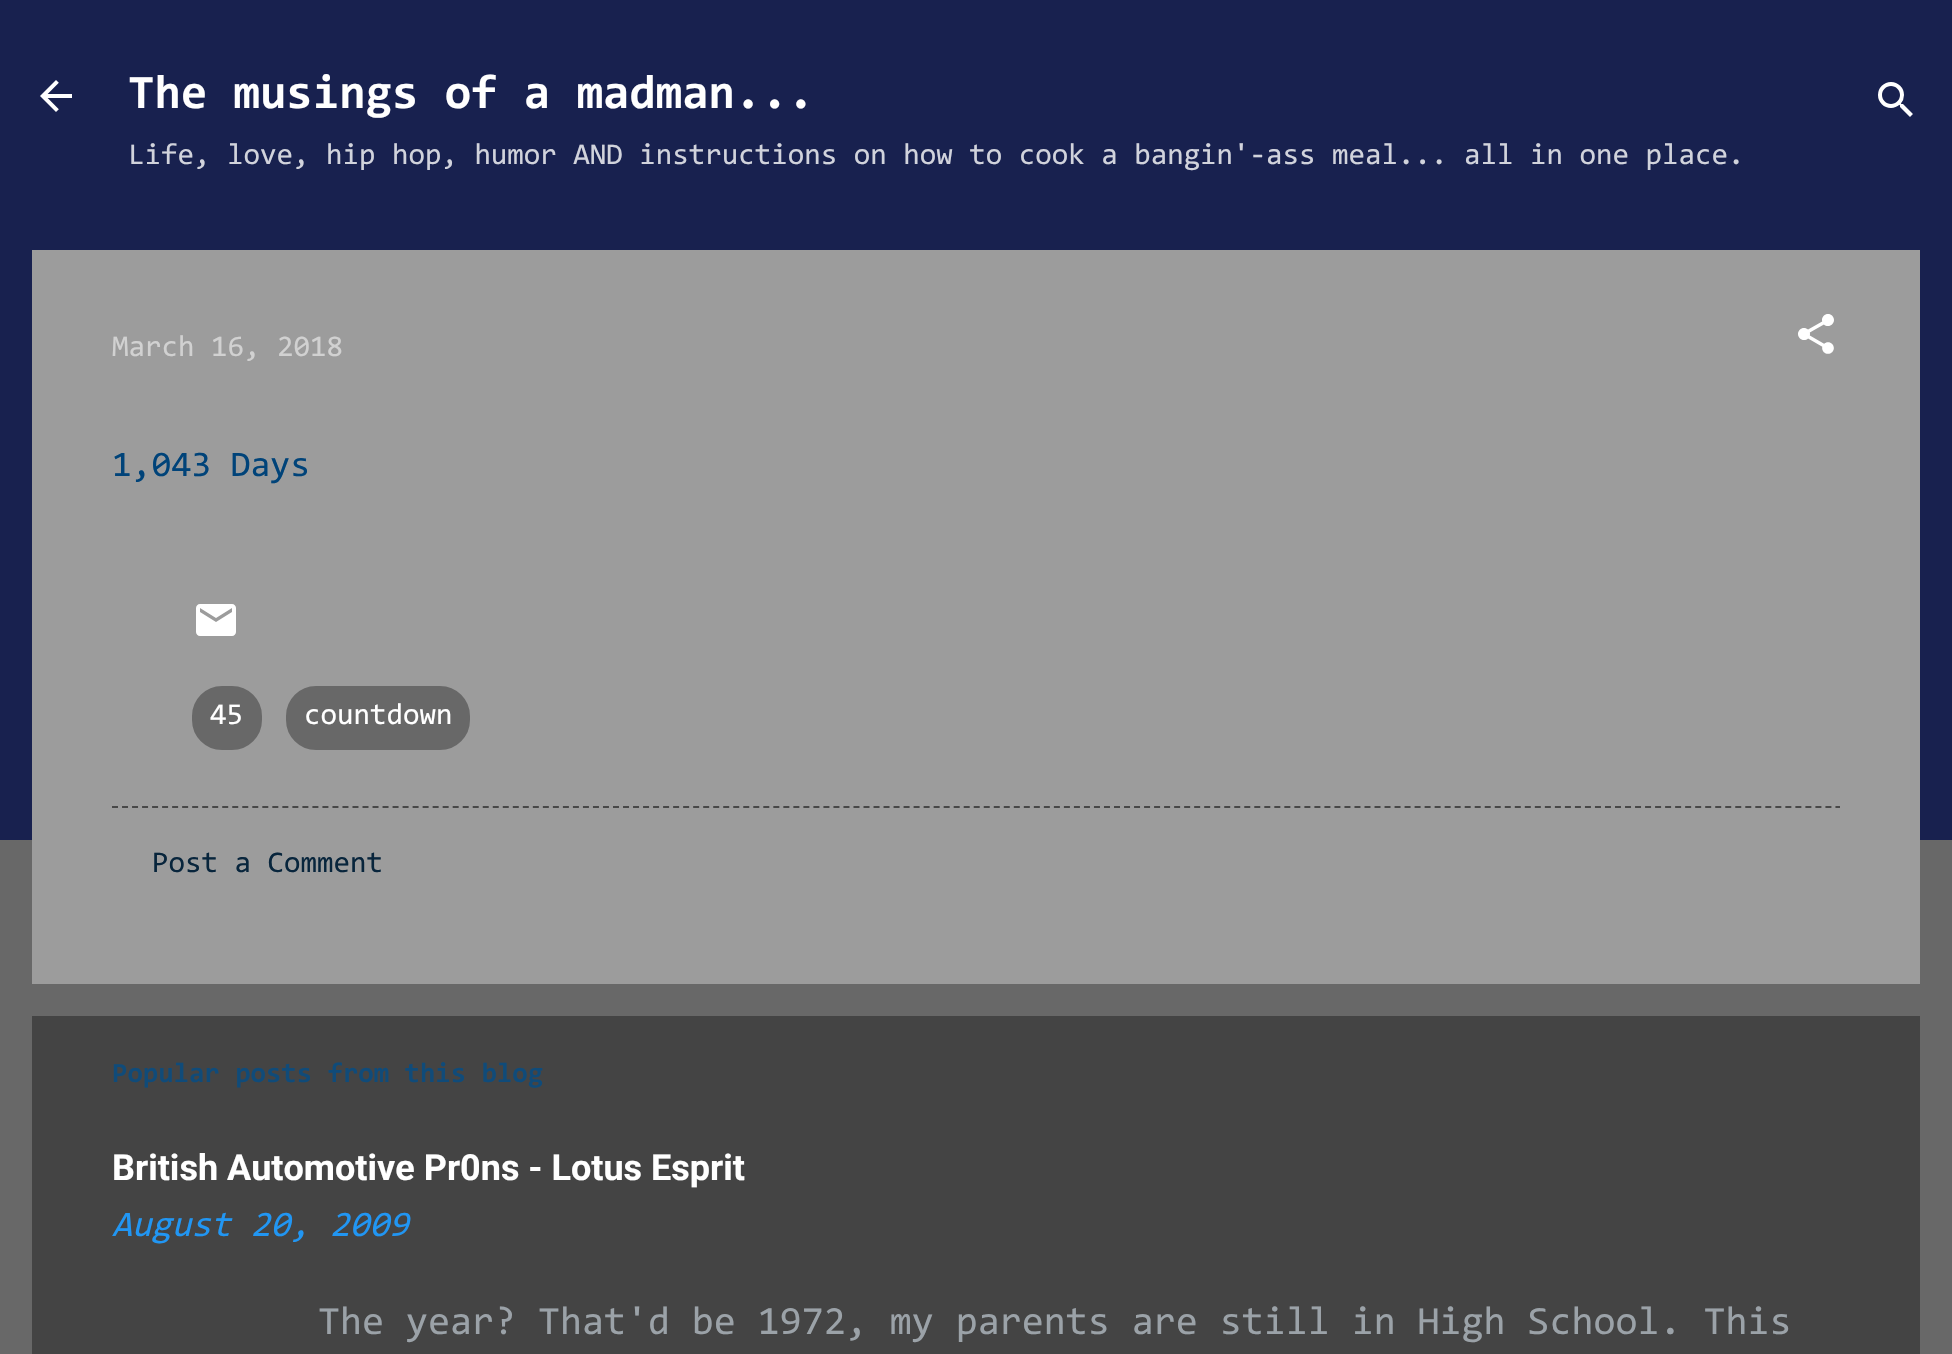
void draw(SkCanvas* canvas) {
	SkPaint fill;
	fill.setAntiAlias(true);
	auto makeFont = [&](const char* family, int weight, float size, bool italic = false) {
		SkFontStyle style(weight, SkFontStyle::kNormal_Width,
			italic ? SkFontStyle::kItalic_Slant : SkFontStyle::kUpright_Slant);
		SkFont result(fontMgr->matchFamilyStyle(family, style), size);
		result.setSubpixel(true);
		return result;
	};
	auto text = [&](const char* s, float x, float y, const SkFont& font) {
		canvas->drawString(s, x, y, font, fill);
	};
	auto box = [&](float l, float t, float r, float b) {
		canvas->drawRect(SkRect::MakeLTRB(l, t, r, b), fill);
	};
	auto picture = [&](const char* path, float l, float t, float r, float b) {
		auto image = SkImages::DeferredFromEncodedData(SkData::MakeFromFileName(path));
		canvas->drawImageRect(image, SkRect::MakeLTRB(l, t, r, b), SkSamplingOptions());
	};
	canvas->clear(0xFF686868);
	fill.setColor(0xFF18214F);
	box(0, 0, 1952, 840);
	picture("image0.png", 40, 80, 72, 112);
	picture("image1.png", 1878, 82, 1913, 117);
	fill.setColor(0xFF9C9C9C);
	box(32, 250, 1920, 984);
	picture("image2.png", 1798, 314, 1834, 354);
	picture("image3.png", 196, 604, 236, 636);
	fill.setColor(0xFF686868);
	canvas->drawRoundRect(SkRect::MakeLTRB(193, 687, 261, 749), 29, 29, fill);
	fill.setStyle(SkPaint::kStroke_Style);
	fill.setStrokeWidth(2);
	canvas->drawRoundRect(SkRect::MakeLTRB(193, 687, 261, 749), 29, 29, fill);
	fill.setStyle(SkPaint::kFill_Style);
	canvas->drawRoundRect(SkRect::MakeLTRB(287, 687, 469, 749), 29, 29, fill);
	fill.setStyle(SkPaint::kStroke_Style);
	canvas->drawRoundRect(SkRect::MakeLTRB(287, 687, 469, 749), 29, 29, fill);
	fill.setColor(0xFF484848);
	fill.setPathEffect(SkDashPathEffect::Make({{6, 4.02f}}, 0));
	canvas->drawPath(SkPathBuilder().moveTo(112, 807).lineTo(1840, 807).detach(), fill);
	fill.setPathEffect(nullptr);
	fill.setStyle(SkPaint::kFill_Style);
	fill.setColor(0xFF444444);
	box(32, 1016, 1920, 1354);
	auto font1 = makeFont("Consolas", 700, 48);
	fill.setColor(0xFFFFFFFF);
	text("The musings of a madman...", 128, 108, font1);
	auto font2 = makeFont("Consolas", 400, 30);
	fill.setColor(0xFFD1D3DC);
	text("Life, love, hip hop, humor AND instructions on how to cook a bangin'-ass meal... all in one place.", 128, 164, font2);
	fill.setColor(0xFFD1D1D1);
	text("March 16, 2018", 112, 356, font2);
	auto font3 = makeFont("Consolas", 400, 36);
	fill.setColor(0xFF004379);
	text("1,043 Days", 112, 476, font3);
	fill.setColor(0xFFFFFFFF);
	text("45", 210, 724, font2);
	text("countdown", 304, 724, font2);
	fill.setColor(0xFF08253C);
	text("Post a Comment", 152, 872, font2);
	auto font4 = makeFont("Consolas", 700, 28);
	fill.setColor(0xFF104B79);
	text("Popular posts from this blog", 112, 1082, font4);
	auto font5 = makeFont("Roboto", 700, 36);
	fill.setColor(0xFFFFFFFF);
	text("British Automotive Pr0ns - Lotus Esprit", 112, 1180, font5);
	auto font6 = makeFont("Consolas", 400, 36, true);
	fill.setColor(0xFF2196F3);
	text("August 20, 2009", 112, 1236, font6);
	auto font7 = makeFont("Consolas", 400, 40);
	fill.setColor(0xFF9BA2A8);
	text("The year? That'd be 1972, my parents are still in High School. This", 318, 1334, font7);
}
